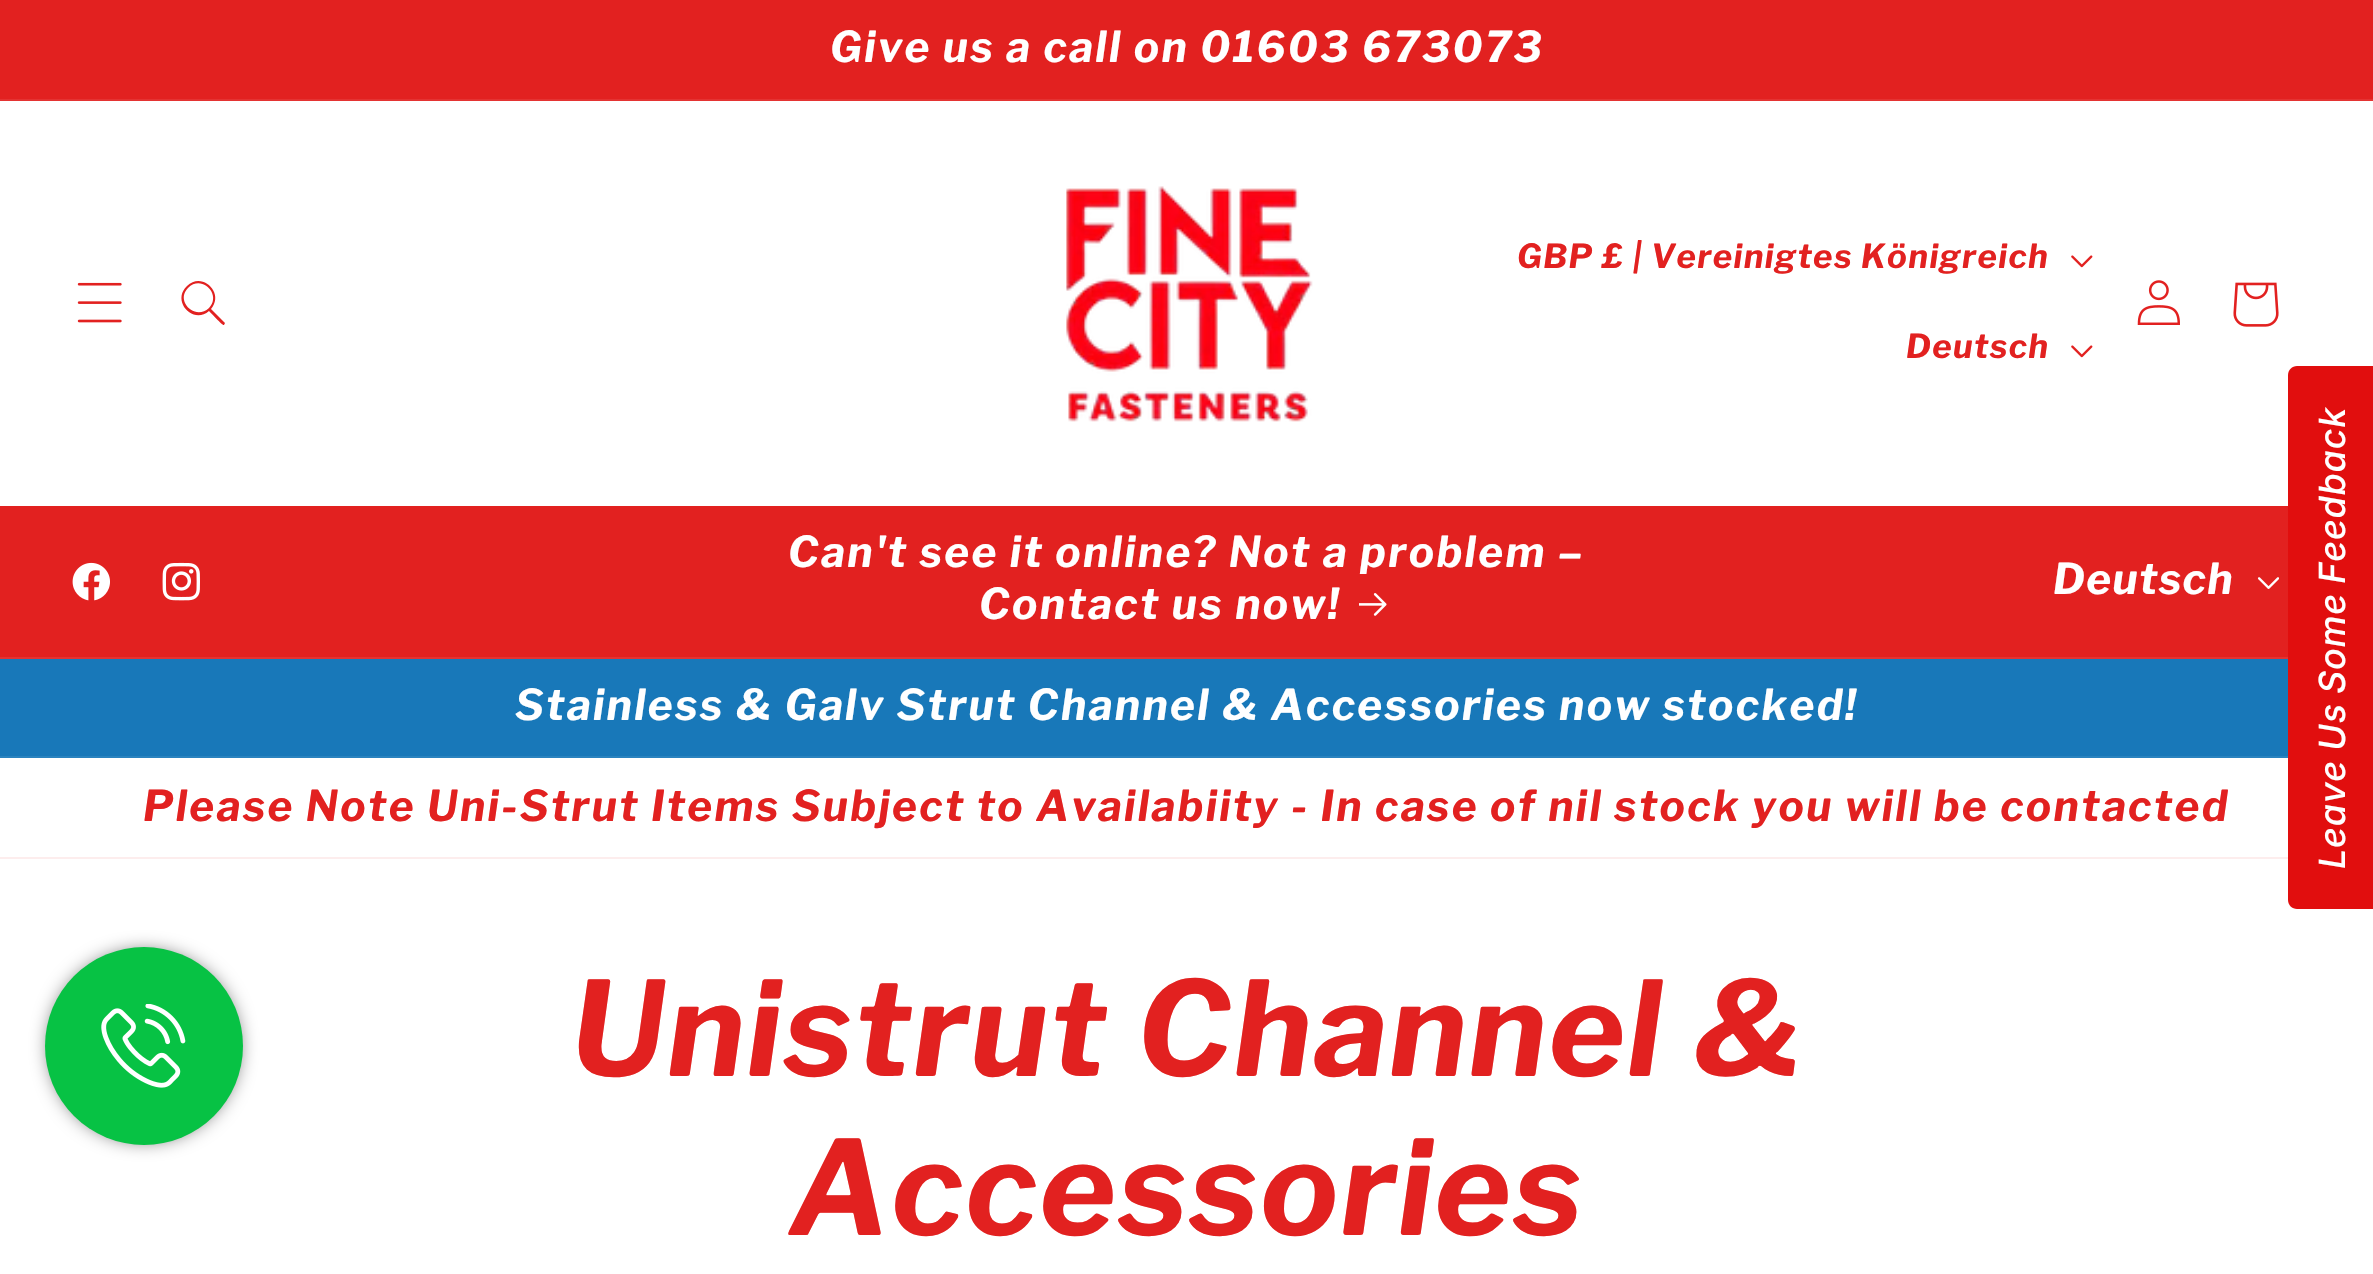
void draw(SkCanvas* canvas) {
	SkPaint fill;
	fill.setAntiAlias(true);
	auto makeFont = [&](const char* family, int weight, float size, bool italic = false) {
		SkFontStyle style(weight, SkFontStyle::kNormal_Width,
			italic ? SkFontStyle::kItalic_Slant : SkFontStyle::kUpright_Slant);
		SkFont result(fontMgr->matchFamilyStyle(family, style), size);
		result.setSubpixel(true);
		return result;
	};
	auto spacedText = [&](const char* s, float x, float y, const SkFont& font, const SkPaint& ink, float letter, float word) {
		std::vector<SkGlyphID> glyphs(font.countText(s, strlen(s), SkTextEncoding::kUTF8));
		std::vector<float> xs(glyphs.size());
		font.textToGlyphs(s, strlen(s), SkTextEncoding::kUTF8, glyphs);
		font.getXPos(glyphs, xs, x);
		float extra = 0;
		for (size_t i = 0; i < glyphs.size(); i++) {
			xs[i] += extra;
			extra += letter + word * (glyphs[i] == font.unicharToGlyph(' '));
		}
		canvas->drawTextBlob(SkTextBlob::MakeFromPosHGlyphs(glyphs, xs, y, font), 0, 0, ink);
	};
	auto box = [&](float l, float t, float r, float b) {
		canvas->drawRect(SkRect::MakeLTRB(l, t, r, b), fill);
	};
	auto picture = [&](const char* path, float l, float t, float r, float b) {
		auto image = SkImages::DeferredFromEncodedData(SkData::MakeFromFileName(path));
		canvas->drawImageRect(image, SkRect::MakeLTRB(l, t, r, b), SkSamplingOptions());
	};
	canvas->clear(0xFFFFFFFF);
	fill.setColor(0xFFE22120);
	box(0, 0, 2373, 99);
	fill.setColor(0xFFE43332);
	box(0, 99, 2373, 101);
	picture("image0.png", 77, 282, 122, 323);
	fill.setColor(0xFFE22120);
	canvas->drawPath(SkPathBuilder(SkPathFillType::kEvenOdd).moveTo(209, 308).cubicTo(195, 321, 175, 301, 188, 288).cubicTo(202, 274, 222, 295, 209, 308).close().moveTo(209, 311).cubicTo(193, 325, 171, 301, 187, 286).cubicTo(202, 271, 225, 293, 211, 309).lineTo(225, 323).lineTo(224, 325).cubicTo(223, 326, 211, 313, 209, 311).close().detach(), fill);
	picture("image1.png", 1066, 186, 1313, 422);
	picture("image2.png", 2071, 255, 2093, 268);
	picture("image2.png", 2071, 345, 2093, 358);
	picture("image3.png", 2137, 280, 2180, 325);
	picture("image4.png", 2233, 282, 2279, 327);
	box(0, 506, 2288, 657);
	fill.setColor(0xFFE43332);
	box(0, 657, 2288, 659);
	picture("image5.png", 72, 562, 110, 601);
	picture("image6.png", 162, 562, 200, 601);
	picture("image7.png", 1359, 593, 1387, 616);
	picture("image8.png", 2257, 577, 2279, 589);
	fill.setColor(0xFFE10E0E);
	canvas->drawPath(SkPathBuilder().moveTo(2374, 909).lineTo(2297, 909).cubicTo(2292, 909, 2288, 905, 2288, 900).lineTo(2288, 375).cubicTo(2288, 370, 2292, 366, 2297, 366).lineTo(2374, 366).close().detach(), fill);
	fill.setColor(0xFF1878B9);
	box(0, 659, 2288, 756);
	fill.setColor(0xFF2A83BF);
	box(0, 756, 2288, 758);
	fill.setColor(0xFFFDEDED);
	box(0, 857, 2288, 859);
	fill.setColor(0xFF000000);
	fill.setMaskFilter(SkMaskFilter::MakeBlur(kNormal_SkBlurStyle, 11));
	canvas->drawRoundRect(SkRect::MakeLTRB(54, 956, 234, 1136), 90, 90, fill);
	fill.setMaskFilter(nullptr);
	fill.setColor(0xFF07C244);
	canvas->drawCircle(144, 1046, 99, fill);
	picture("image9.png", 101, 1004, 186, 1088);
	auto font1 = makeFont("Libre Franklin", 700, 42.4f, true);
	fill.setColor(0xFFFFFFFF);
	spacedText("Give us a call on 01603 673073", 830, 62, font1, fill, 2.35f, 0);
	auto font2 = makeFont("Libre Franklin", 700, 33.1f, true);
	fill.setColor(0xFFE22120);
	spacedText("GBP £ | Vereinigtes Königreich", 1517, 268, font2, fill, 1.4f, 0);
	spacedText("Deutsch", 1906, 358, font2, fill, 1.4f, 0);
	fill.setColor(0xFFFFFFFF);
	spacedText("Can't see it online? Not a problem –", 788, 567, font1, fill, 2.35f, 0);
	spacedText("Contact us now!", 979, 619, font1, fill, 2.35f, 0);
	spacedText("Deutsch", 2053, 594, font1, fill, 1.4f, 0);
	auto font3 = makeFont("Inter", 500, 36, true);
	canvas->save();
	canvas->rotate(-90, 2345, 869);
	spacedText("Leave Us Some Feedback", 2345, 869, font3, fill, 0.75f, -1);
	canvas->restore();
	spacedText("Stainless & Galv Strut Channel & Accessories now stocked!", 515, 720, font1, fill, 2.35f, 0);
	fill.setColor(0xFFE22120);
	spacedText("Please Note Uni-Strut Items Subject to Availabiity - In case of nil stock you will be contacted", 143, 821, font1, fill, 2.35f, 0);
	auto font4 = makeFont("Libre Franklin", 700, 130.5f, true);
	spacedText("Unistrut Channel &", 571, 1076, font4, fill, 2, 0);
	spacedText("Accessories", 789, 1235, font4, fill, 2, 0);
}
